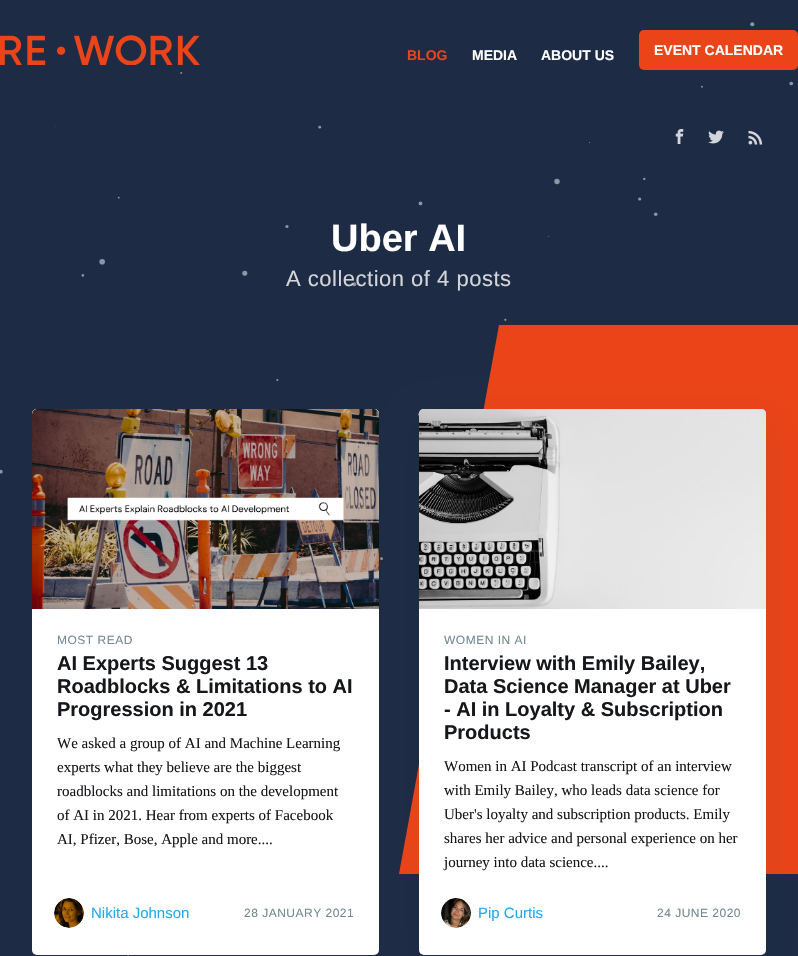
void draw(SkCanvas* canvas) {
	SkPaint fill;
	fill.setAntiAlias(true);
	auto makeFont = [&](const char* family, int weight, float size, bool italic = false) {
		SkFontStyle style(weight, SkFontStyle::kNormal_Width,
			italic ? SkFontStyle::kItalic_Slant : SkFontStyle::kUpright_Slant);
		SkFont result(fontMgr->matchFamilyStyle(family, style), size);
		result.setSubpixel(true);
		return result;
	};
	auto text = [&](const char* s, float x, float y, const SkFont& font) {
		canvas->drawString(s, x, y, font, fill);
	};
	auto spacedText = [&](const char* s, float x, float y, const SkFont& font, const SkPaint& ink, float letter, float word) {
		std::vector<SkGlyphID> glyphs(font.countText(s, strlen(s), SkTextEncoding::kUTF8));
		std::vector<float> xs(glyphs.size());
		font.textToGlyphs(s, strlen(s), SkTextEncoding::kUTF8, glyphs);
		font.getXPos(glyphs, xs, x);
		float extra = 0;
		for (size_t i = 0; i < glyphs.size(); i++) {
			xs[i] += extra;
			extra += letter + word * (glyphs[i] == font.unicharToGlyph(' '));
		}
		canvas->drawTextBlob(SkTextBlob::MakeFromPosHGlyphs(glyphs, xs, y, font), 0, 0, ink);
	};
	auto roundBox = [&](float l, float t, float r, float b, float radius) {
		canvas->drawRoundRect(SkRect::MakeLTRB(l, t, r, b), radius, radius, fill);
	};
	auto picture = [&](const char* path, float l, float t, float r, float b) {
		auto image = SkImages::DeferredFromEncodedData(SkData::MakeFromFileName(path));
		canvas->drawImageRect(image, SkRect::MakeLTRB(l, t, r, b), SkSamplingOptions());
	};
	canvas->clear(0xFF1D2B45);
	picture("image0.png", 0, 22, 794, 956);
	picture("image1.png", 0, 35, 200, 65);
	fill.setColor(0xFFEA4418);
	roundBox(639, 30, 798, 70, 5);
	picture("image2.png", 675, 129, 684, 144);
	picture("image3.png", 708, 130, 724, 144);
	picture("image4.png", 748, 130, 763, 145);
	canvas->drawPath(SkPathBuilder().moveTo(798, 874).lineTo(798, 325).lineTo(499, 325).lineTo(399, 874).close().detach(), fill);
	fill.setColor(0xFFFFFFFF);
	roundBox(32, 409, 379, 955, 5);
	fill.setColor(0x0F272C31);
	fill.setMaskFilter(SkMaskFilter::MakeBlur(kNormal_SkBlurStyle, 19));
	canvas->drawRoundRect(SkRect::MakeLTRB(427, 423, 774, 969), 5, 5, fill);
	fill.setMaskFilter(nullptr);
	fill.setColor(0xFFC5D2D9);
	canvas->drawPath(SkPathBuilder().moveTo(37, 409).lineTo(374, 409).cubicTo(377, 409, 379, 411, 379, 414).lineTo(379, 609).lineTo(32, 609).lineTo(32, 414).cubicTo(32, 411, 34, 409, 37, 409).close().detach(), fill);
	picture("image5.png", 32, 409, 379, 609);
	fill.setColor(0xFFE3E9ED);
	canvas->drawCircle(69, 913, 15, fill);
	picture("image6.png", 54, 898, 84, 928);
	fill.setColor(0xFFFFFFFF);
	roundBox(419, 409, 766, 955, 5);
	fill.setColor(0xFFC5D2D9);
	canvas->drawPath(SkPathBuilder().moveTo(424, 409).lineTo(761, 409).cubicTo(764, 409, 766, 411, 766, 414).lineTo(766, 609).lineTo(419, 609).lineTo(419, 414).cubicTo(419, 411, 421, 409, 424, 409).close().detach(), fill);
	picture("image7.png", 419, 409, 766, 609);
	fill.setColor(0xFFE3E9ED);
	canvas->drawCircle(456, 913, 15, fill);
	picture("image8.png", 441, 898, 471, 928);
	auto font1 = makeFont("Liberation Sans", 700, 14);
	fill.setColor(0xFFEA4418);
	text("BLOG", 407, 60, font1);
	fill.setColor(0xFFFFFFFF);
	text("MEDIA", 472, 60, font1);
	text("ABOUT US", 541, 60, font1);
	text("EVENT CALENDAR", 654, 55, font1);
	auto font2 = makeFont("Liberation Sans", 700, 38);
	text("Uber AI", 331, 251, font2);
	auto font3 = makeFont("Liberation Sans", 400, 22);
	fill.setColor(0xFFD2D5DA);
	spacedText("A collection of 4 posts", 286, 286, font3, fill, 0.5f, 0);
	auto font4 = makeFont("Liberation Sans", 400, 12);
	fill.setColor(0xFF738A94);
	spacedText("MOST READ", 57, 644, font4, fill, 0.5f, 0);
	auto font5 = makeFont("Liberation Sans", 700, 20);
	fill.setColor(0xFF15171A);
	text("AI Experts Suggest 13", 57, 670, font5);
	text("Roadblocks & Limitations to AI", 57, 693, font5);
	text("Progression in 2021", 57, 716, font5);
	auto font6 = makeFont("Liberation Serif", 400, 15);
	text("We asked a group of AI and Machine Learning", 57, 748, font6);
	text("experts what they believe are the biggest", 57, 772, font6);
	text("roadblocks and limitations on the development", 57, 796, font6);
	text("of AI in 2021. Hear from experts of Facebook", 57, 820, font6);
	text("AI, Pfizer, Bose, Apple and more....", 57, 844, font6);
	auto font7 = makeFont("Liberation Sans", 400, 15);
	fill.setColor(0xFF26A8ED);
	text("Nikita Johnson", 91, 918, font7);
	fill.setColor(0xFF738A94);
	spacedText("28 JANUARY 2021", 244, 917, font4, fill, 0.5f, 0);
	spacedText("WOMEN IN AI", 444, 644, font4, fill, 0.5f, 0);
	fill.setColor(0xFF15171A);
	text("Interview with Emily Bailey,", 444, 670, font5);
	text("Data Science Manager at Uber", 444, 693, font5);
	text("- AI in Loyalty & Subscription", 444, 716, font5);
	text("Products", 444, 739, font5);
	text("Women in AI Podcast transcript of an interview", 444, 771, font6);
	text("with Emily Bailey, who leads data science for", 444, 795, font6);
	text("Uber's loyalty and subscription products. Emily", 444, 819, font6);
	text("shares her advice and personal experience on her", 444, 843, font6);
	text("journey into data science....", 444, 867, font6);
	fill.setColor(0xFF26A8ED);
	text("Pip Curtis", 478, 918, font7);
	fill.setColor(0xFF738A94);
	spacedText("24 JUNE 2020", 657, 917, font4, fill, 0.5f, 0);
}
